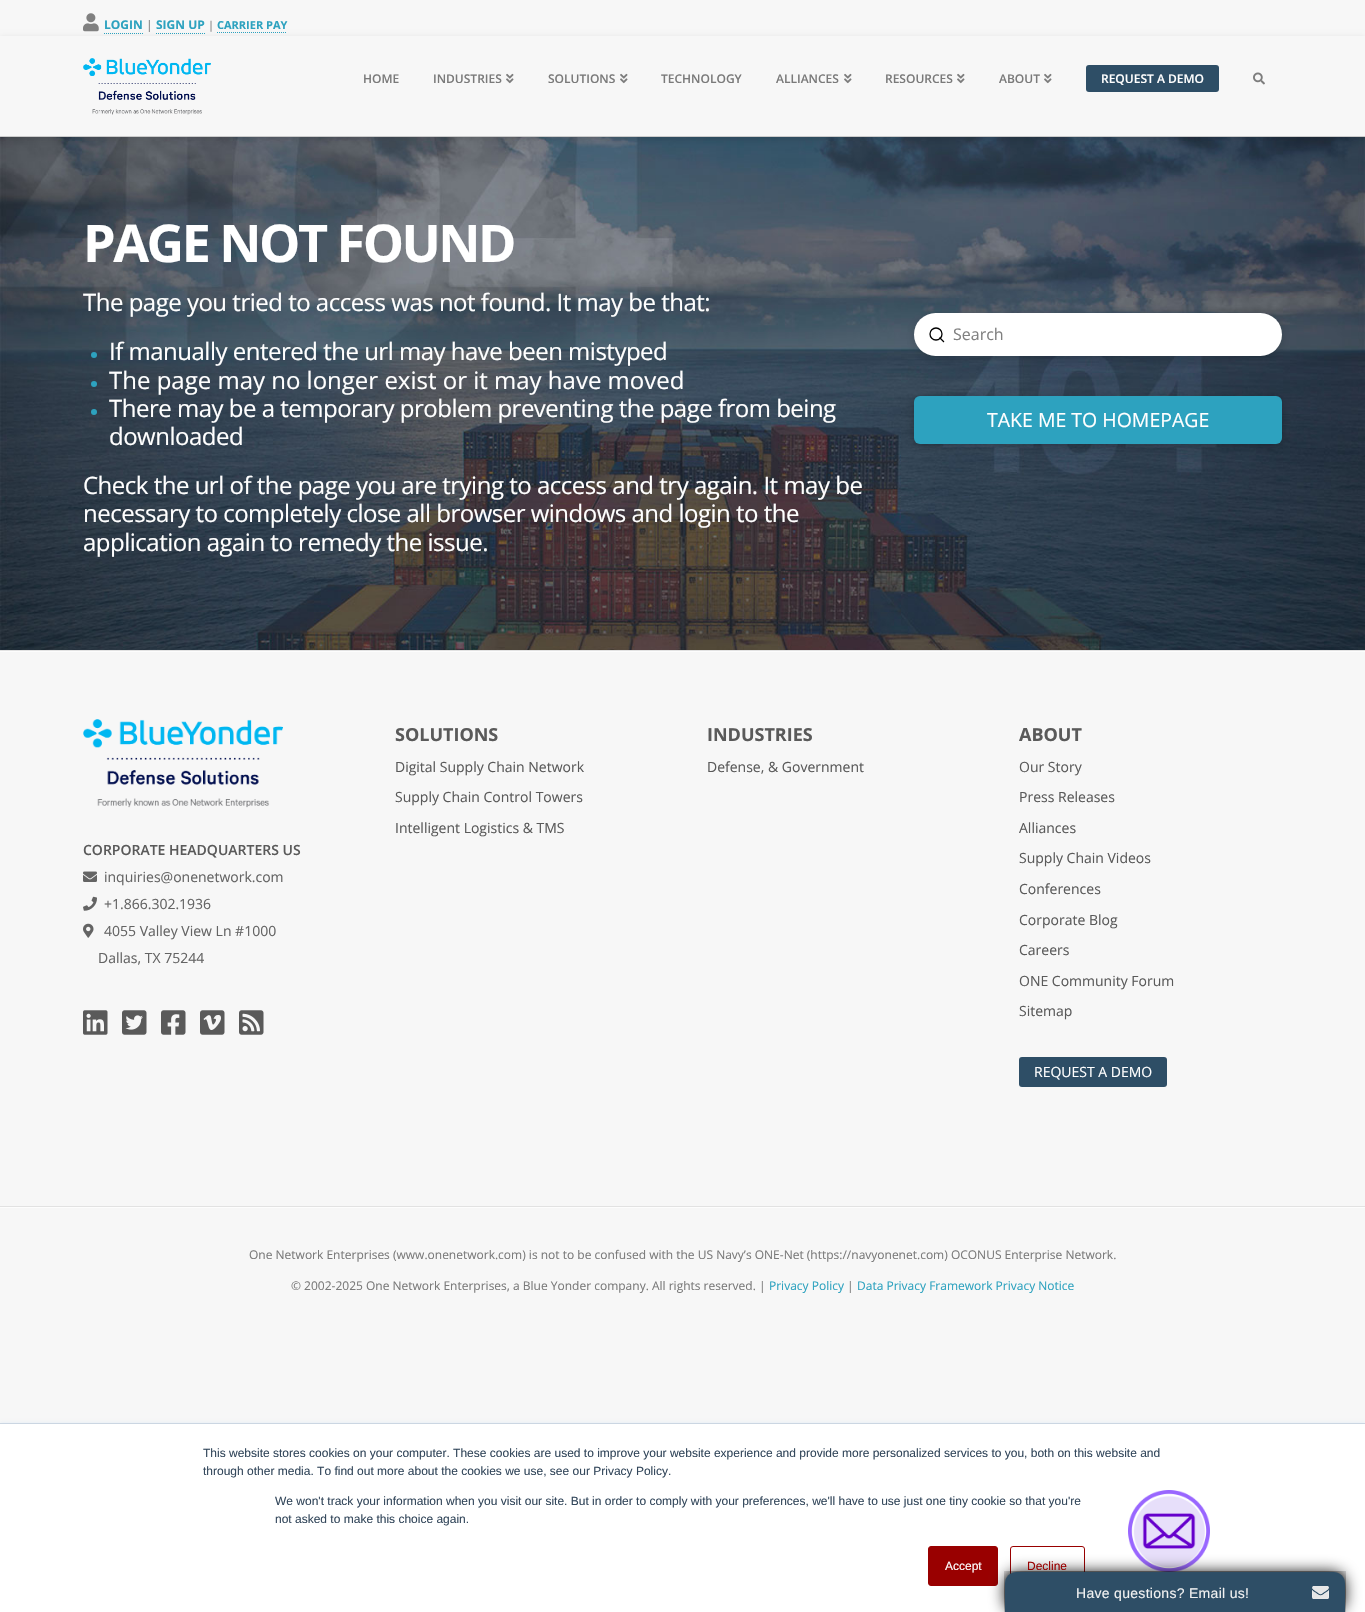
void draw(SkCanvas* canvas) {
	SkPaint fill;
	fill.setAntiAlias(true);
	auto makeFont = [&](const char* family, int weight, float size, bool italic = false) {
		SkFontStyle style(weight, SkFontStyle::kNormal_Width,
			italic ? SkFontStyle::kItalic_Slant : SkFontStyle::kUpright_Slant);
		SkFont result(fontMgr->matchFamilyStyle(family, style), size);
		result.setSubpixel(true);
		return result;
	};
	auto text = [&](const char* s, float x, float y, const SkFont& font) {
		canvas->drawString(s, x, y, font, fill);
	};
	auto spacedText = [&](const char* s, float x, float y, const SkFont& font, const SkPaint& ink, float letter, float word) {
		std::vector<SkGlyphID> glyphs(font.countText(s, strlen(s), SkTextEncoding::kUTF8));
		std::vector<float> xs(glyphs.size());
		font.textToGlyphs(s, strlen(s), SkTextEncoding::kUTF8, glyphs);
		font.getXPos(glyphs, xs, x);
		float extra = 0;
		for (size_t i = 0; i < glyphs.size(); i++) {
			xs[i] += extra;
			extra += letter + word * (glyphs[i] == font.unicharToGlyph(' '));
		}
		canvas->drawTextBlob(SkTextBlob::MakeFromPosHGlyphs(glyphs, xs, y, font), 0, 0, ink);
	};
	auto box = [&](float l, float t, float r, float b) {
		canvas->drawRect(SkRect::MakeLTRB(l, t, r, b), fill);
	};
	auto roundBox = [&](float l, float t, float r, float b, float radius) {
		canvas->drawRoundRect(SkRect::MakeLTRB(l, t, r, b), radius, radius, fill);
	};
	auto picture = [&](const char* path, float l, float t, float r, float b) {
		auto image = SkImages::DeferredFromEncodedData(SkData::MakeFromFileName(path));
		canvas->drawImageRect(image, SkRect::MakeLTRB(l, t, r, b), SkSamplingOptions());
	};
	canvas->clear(0xFFF7F7F7);
	picture("image4.png", 0, 137, 1365, 650);
	canvas->save();
	canvas->clipPath(SkPathBuilder(SkPathFillType::kEvenOdd).moveTo(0, 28).lineTo(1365, 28).lineTo(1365, 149).lineTo(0, 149).close().moveTo(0, 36).lineTo(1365, 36).lineTo(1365, 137).lineTo(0, 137).close().detach(), true);
	fill.setColor(0x21000000);
	fill.setMaskFilter(SkMaskFilter::MakeBlur(kNormal_SkBlurStyle, 3));
	canvas->drawRect(SkRect::MakeLTRB(0, 38, 1365, 139), fill);
	fill.setMaskFilter(nullptr);
	canvas->restore();
	picture("image0.png", 83, 13, 99, 32);
	fill.setStyle(SkPaint::kStroke_Style);
	fill.setStrokeWidth(1);
	fill.setColor(0xFF2DA2BF);
	fill.setPathEffect(SkDashPathEffect::Make({{1, 1}}, 0));
	canvas->drawPath(SkPathBuilder().moveTo(104, 33.5f).lineTo(143, 33.5f).detach(), fill);
	fill.setPathEffect(nullptr);
	fill.setPathEffect(SkDashPathEffect::Make({{1, 1}}, 0));
	canvas->drawPath(SkPathBuilder().moveTo(156, 33.5f).lineTo(205, 33.5f).detach(), fill);
	fill.setPathEffect(nullptr);
	fill.setPathEffect(SkDashPathEffect::Make({{1, 1}}, 0));
	canvas->drawPath(SkPathBuilder().moveTo(217, 32.5f).lineTo(287, 32.5f).detach(), fill);
	fill.setPathEffect(nullptr);
	fill.setStyle(SkPaint::kFill_Style);
	fill.setColor(0xFFCCCCCC);
	box(0, 136, 1365, 137);
	picture("image1.png", 83, 58, 211, 115);
	picture("image2.png", 506, 73, 514, 84);
	picture("image2.png", 620, 73, 628, 84);
	picture("image2.png", 844, 73, 852, 84);
	picture("image2.png", 957, 73, 965, 84);
	picture("image2.png", 1044, 73, 1052, 84);
	fill.setColor(0xFF2E4E66);
	roundBox(1086, 65, 1219, 92, 3);
	picture("image3.png", 1253, 72, 1265, 85);
	fill.setColor(0xFF2DA2BF);
	canvas->drawCircle(94, 355, 3, fill);
	canvas->drawCircle(94, 384, 3, fill);
	canvas->drawCircle(94, 412, 3, fill);
	fill.setColor(0x26000000);
	fill.setMaskFilter(SkMaskFilter::MakeBlur(kNormal_SkBlurStyle, 4));
	canvas->drawRoundRect(SkRect::MakeLTRB(914, 315, 1282, 358), 21.5f, 21.5f, fill);
	fill.setMaskFilter(nullptr);
	fill.setColor(0xFFFFFFFF);
	roundBox(914, 313, 1282, 356, 21.5f);
	fill.setStyle(SkPaint::kStroke_Style);
	fill.setStrokeWidth(1.3f);
	fill.setColor(0xFF000000);
	canvas->drawCircle(936, 334, 6, fill);
	fill.setStrokeCap(SkPaint::kSquare_Cap);
	canvas->drawPath(SkPathBuilder().moveTo(943.5f, 341.5f).lineTo(940, 338).detach(), fill);
	fill.setStyle(SkPaint::kFill_Style);
	fill.setColor(0x40000000);
	fill.setMaskFilter(SkMaskFilter::MakeBlur(kNormal_SkBlurStyle, 5));
	canvas->drawRoundRect(SkRect::MakeLTRB(914, 398, 1282, 446), 6, 6, fill);
	fill.setMaskFilter(nullptr);
	fill.setColor(0xFF2DA2BF);
	roundBox(914, 396, 1282, 444, 6);
	fill.setColor(0xFFFDFDFD);
	box(0, 651, 1365, 652);
	fill.setColor(0xFFE2E2E2);
	box(0, 650, 1365, 651);
	picture("image5.png", 83, 719, 283, 808);
	picture("image6.png", 83, 871, 97, 882);
	picture("image7.png", 83, 896, 97, 911);
	picture("image8.png", 83, 923, 94, 938);
	picture("image9.png", 83, 1010, 108, 1035);
	picture("image10.png", 122, 1010, 147, 1035);
	picture("image11.png", 161, 1010, 186, 1035);
	picture("image12.png", 200, 1010, 225, 1035);
	picture("image13.png", 239, 1010, 264, 1035);
	fill.setColor(0xFF2E4E66);
	roundBox(1019, 1057, 1167, 1087, 3);
	fill.setColor(0xFFFDFDFD);
	box(0, 1207, 1365, 1208);
	fill.setColor(0xFFE2E2E2);
	box(0, 1206, 1365, 1207);
	fill.setColor(0xFFEAF0F6);
	fill.setMaskFilter(SkMaskFilter::MakeBlur(kNormal_SkBlurStyle, 1.5f));
	canvas->drawRect(SkRect::MakeLTRB(0, 1422, 1365, 1611), fill);
	fill.setMaskFilter(nullptr);
	fill.setColor(0xFFFFFFFF);
	box(0, 1424, 1365, 1612);
	fill.setColor(0xFFCBD6E2);
	box(0, 1423, 1365, 1424);
	fill.setColor(0xFF990000);
	canvas->drawRoundRect(SkRect::MakeLTRB(928.5f, 1546.5f, 997.5f, 1585.5f), 2.5f, 2.5f, fill);
	fill.setStyle(SkPaint::kStroke_Style);
	fill.setStrokeWidth(1);
	fill.setStrokeCap(SkPaint::kButt_Cap);
	canvas->drawRoundRect(SkRect::MakeLTRB(928.5f, 1546.5f, 997.5f, 1585.5f), 2.5f, 2.5f, fill);
	canvas->drawRoundRect(SkRect::MakeLTRB(1010.5f, 1546.5f, 1084.5f, 1585.5f), 2.5f, 2.5f, fill);
	picture("image14.png", 1128, 1490, 1210, 1572);
	fill.setStyle(SkPaint::kFill_Style);
	fill.setColor(0xFF111111);
	fill.setMaskFilter(SkMaskFilter::MakeBlur(kNormal_SkBlurStyle, 7.5f));
	canvas->drawRoundRect(SkRect::MakeLTRB(1005, 1572, 1345, 1612), 13, 13, fill);
	fill.setMaskFilter(nullptr);
	picture("image15.png", 1004, 1571, 1346, 1612);
	fill.setColor(0xFF2E4E66);
	canvas->drawPath(SkPathBuilder().moveTo(1016, 1572).lineTo(1334, 1572).cubicTo(1340, 1572, 1345, 1577, 1345, 1583).lineTo(1345, 1612).lineTo(1005, 1612).lineTo(1005, 1583).cubicTo(1005, 1577, 1010, 1572, 1016, 1572).close().detach(), fill);
	picture("image16.png", 1312, 1586, 1329, 1599);
	auto font1 = makeFont("Open Sans", 700, 12);
	fill.setColor(0xFF2DA2BF);
	text("LOGIN", 104, 29, font1);
	auto font2 = makeFont("Open Sans", 400, 12);
	fill.setColor(0xFF7A7A7A);
	text("|", 146, 29, font2);
	fill.setColor(0xFF2DA2BF);
	text("SIGN UP", 156, 29, font1);
	auto font3 = makeFont("Open Sans", 400, 11);
	fill.setColor(0xFF7A7A7A);
	text("|", 208, 29, font3);
	auto font4 = makeFont("Open Sans", 700, 11);
	fill.setColor(0xFF2DA2BF);
	text("CARRIER PAY", 217, 29, font4);
	auto font5 = makeFont("Open Sans", 600, 12);
	fill.setColor(0xFF7A7A7A);
	text("HOME", 363, 83, font5);
	text("INDUSTRIES", 433, 83, font5);
	text("SOLUTIONS", 548, 83, font5);
	text("TECHNOLOGY", 661, 83, font5);
	text("ALLIANCES", 776, 83, font5);
	text("RESOURCES", 885, 83, font5);
	text("ABOUT", 999, 83, font5);
	fill.setColor(0xFFFFFFFF);
	text("REQUEST A DEMO", 1101, 83, font5);
	auto font6 = makeFont("Open Sans", 700, 52);
	spacedText("PAGE NOT FOUND", 83, 262, font6, fill, -2.5f, 0);
	auto font7 = makeFont("Open Sans", 400, 24);
	spacedText("The page you tried to access was not found. It may be that:", 83, 311, font7, fill, -0.5f, 0);
	spacedText("If manually entered the url may have been mistyped", 109, 360, font7, fill, -0.5f, 0);
	text("The page may no longer exist or it may have moved", 109, 389, font7);
	spacedText("There may be a temporary problem preventing the page from being", 109, 417, font7, fill, -0.5f, 0);
	spacedText("downloaded", 109, 445, font7, fill, -0.5f, 0);
	spacedText("Check the url of the page you are trying to access and try again. It may be", 83, 494, font7, fill, -0.5f, 0);
	spacedText("necessary to completely close all browser windows and login to the", 83, 522, font7, fill, -0.5f, 0);
	spacedText("application again to remedy the issue.", 83, 551, font7, fill, -0.5f, 0);
	auto font8 = makeFont("Open Sans", 400, 16);
	fill.setColor(0xFF808080);
	text("Search", 953, 340, font8);
	auto font9 = makeFont("Open Sans", 400, 19.5f);
	fill.setColor(0xFFFFFFFF);
	text("TAKE ME TO HOMEPAGE", 987, 427, font9);
	auto font10 = makeFont("Open Sans", 600, 14);
	fill.setColor(0xFF5A5A5A);
	text("CORPORATE HEADQUARTERS US", 83, 855, font10);
	auto font11 = makeFont("Open Sans", 400, 14);
	fill.setColor(0xFF646464);
	text("inquiries@onenetwork.com", 104, 882, font11);
	text("+1.866.302.1936", 104, 909, font11);
	text("4055 Valley View Ln #1000", 104, 936, font11);
	text("Dallas, TX 75244", 98, 963, font11);
	auto font12 = makeFont("Open Sans", 700, 18);
	fill.setColor(0xFF5A5A5A);
	text("SOLUTIONS", 395, 741, font12);
	text("Digital Supply Chain Network", 395, 772, font11);
	text("Supply Chain Control Towers", 395, 802, font11);
	text("Intelligent Logistics & TMS", 395, 833, font11);
	text("INDUSTRIES", 707, 741, font12);
	text("Defense, & Government", 707, 772, font11);
	text("ABOUT", 1019, 741, font12);
	text("Our Story", 1019, 772, font11);
	text("Press Releases", 1019, 802, font11);
	text("Alliances", 1019, 833, font11);
	text("Supply Chain Videos", 1019, 863, font11);
	text("Conferences", 1019, 894, font11);
	text("Corporate Blog", 1019, 925, font11);
	text("Careers", 1019, 955, font11);
	text("ONE Community Forum", 1019, 986, font11);
	text("Sitemap", 1019, 1016, font11);
	fill.setColor(0xFFFFFFFF);
	text("REQUEST A DEMO", 1034, 1077, font11);
	fill.setColor(0xFF7A7A7A);
	text("One Network Enterprises (www.onenetwork.com) is not to be confused with the US Navy’s ONE-Net (https://navyonenet.com) OCONUS Enterprise Network.", 249, 1259, font2);
	text("© 2002-2025 One Network Enterprises, a Blue Yonder company. All rights reserved. |", 291, 1290, font2);
	fill.setColor(0xFF2DA2BF);
	text("Privacy Policy", 769, 1290, font2);
	fill.setColor(0xFF7A7A7A);
	text("|", 847, 1290, font2);
	fill.setColor(0xFF2DA2BF);
	text("Data Privacy Framework Privacy Notice", 857, 1290, font2);
	auto font13 = makeFont("Liberation Sans", 400, 12);
	fill.setColor(0xFF33475B);
	text("This website stores cookies on your computer. These cookies are used to improve your website experience and provide more personalized services to you, both on this website and", 203, 1457, font13);
	text("through other media. To find out more about the cookies we use, see our Privacy Policy.", 203, 1475, font13);
	text("We won't track your information when you visit our site. But in order to comply with your preferences, we'll have to use just one tiny cookie so that you're", 275, 1505, font13);
	text("not asked to make this choice again.", 275, 1523, font13);
	fill.setColor(0xFFFFFFFF);
	text("Accept", 945, 1570, font13);
	fill.setColor(0xFF990000);
	text("Decline", 1027, 1570, font13);
	auto font14 = makeFont("Liberation Sans", 400, 14);
	fill.setColor(0xFFF1F1F1);
	spacedText("Have questions? Email us!", 1076, 1598, font14, fill, 0.3f, 0);
}
